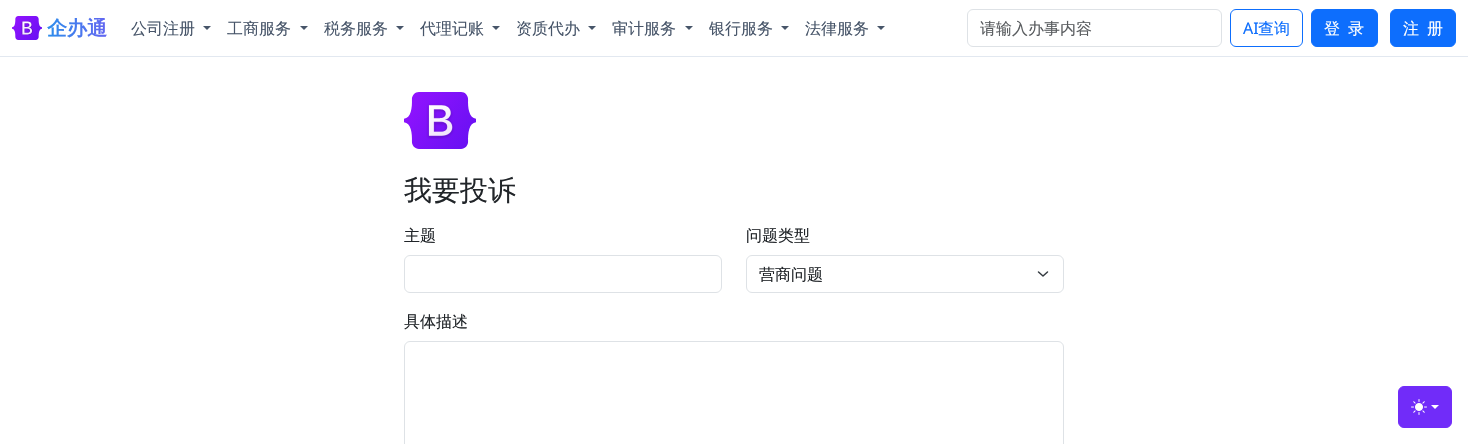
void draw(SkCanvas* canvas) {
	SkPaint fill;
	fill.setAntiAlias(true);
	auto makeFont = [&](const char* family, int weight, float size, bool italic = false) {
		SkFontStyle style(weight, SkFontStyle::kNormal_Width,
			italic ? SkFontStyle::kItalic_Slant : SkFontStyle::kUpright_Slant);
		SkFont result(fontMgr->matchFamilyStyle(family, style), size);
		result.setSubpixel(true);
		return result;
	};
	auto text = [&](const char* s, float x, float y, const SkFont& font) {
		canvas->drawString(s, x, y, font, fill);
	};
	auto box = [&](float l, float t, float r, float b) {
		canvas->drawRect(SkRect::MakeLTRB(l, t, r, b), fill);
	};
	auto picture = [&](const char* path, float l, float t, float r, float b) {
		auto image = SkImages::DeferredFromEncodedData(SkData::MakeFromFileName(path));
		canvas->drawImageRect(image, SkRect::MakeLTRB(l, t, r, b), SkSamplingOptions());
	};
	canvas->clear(0xFFFFFFFF);
	fill.setColor(0xFFE2E8F0);
	box(0, 56, 1468, 57);
	picture("image0.png", 12, 16, 42, 40);
	fill.setColor(0xFF475569);
	canvas->drawPath(SkPathBuilder().moveTo(203, 26).lineTo(211, 26).lineTo(207, 30).close().detach(), fill);
	canvas->drawPath(SkPathBuilder().moveTo(300, 26).lineTo(308, 26).lineTo(304, 30).close().detach(), fill);
	canvas->drawPath(SkPathBuilder().moveTo(396, 26).lineTo(404, 26).lineTo(400, 30).close().detach(), fill);
	canvas->drawPath(SkPathBuilder().moveTo(492, 26).lineTo(500, 26).lineTo(496, 30).close().detach(), fill);
	canvas->drawPath(SkPathBuilder().moveTo(588, 26).lineTo(596, 26).lineTo(592, 30).close().detach(), fill);
	canvas->drawPath(SkPathBuilder().moveTo(685, 26).lineTo(693, 26).lineTo(689, 30).close().detach(), fill);
	canvas->drawPath(SkPathBuilder().moveTo(781, 26).lineTo(789, 26).lineTo(785, 30).close().detach(), fill);
	canvas->drawPath(SkPathBuilder().moveTo(877, 26).lineTo(885, 26).lineTo(881, 30).close().detach(), fill);
	fill.setStyle(SkPaint::kStroke_Style);
	fill.setStrokeWidth(1);
	fill.setColor(0xFFDEE2E6);
	canvas->drawRoundRect(SkRect::MakeLTRB(967.5f, 9.5f, 1221.5f, 46.5f), 5.5f, 5.5f, fill);
	fill.setColor(0xFF0D6EFD);
	canvas->drawRoundRect(SkRect::MakeLTRB(1230.5f, 9.5f, 1302.5f, 46.5f), 5.5f, 5.5f, fill);
	fill.setStyle(SkPaint::kFill_Style);
	canvas->drawRoundRect(SkRect::MakeLTRB(1311.5f, 9.5f, 1377.5f, 46.5f), 5.5f, 5.5f, fill);
	fill.setStyle(SkPaint::kStroke_Style);
	canvas->drawRoundRect(SkRect::MakeLTRB(1311.5f, 9.5f, 1377.5f, 46.5f), 5.5f, 5.5f, fill);
	fill.setStyle(SkPaint::kFill_Style);
	canvas->drawRoundRect(SkRect::MakeLTRB(1390.5f, 9.5f, 1455.5f, 46.5f), 5.5f, 5.5f, fill);
	fill.setStyle(SkPaint::kStroke_Style);
	canvas->drawRoundRect(SkRect::MakeLTRB(1390.5f, 9.5f, 1455.5f, 46.5f), 5.5f, 5.5f, fill);
	picture("image1.png", 404, 92, 476, 149);
	fill.setColor(0xFFDEE2E6);
	canvas->drawRoundRect(SkRect::MakeLTRB(404.5f, 255.5f, 721.5f, 292.5f), 5.5f, 5.5f, fill);
	fill.setStrokeWidth(1.5f);
	fill.setStrokeCap(SkPaint::kRound_Cap);
	fill.setStrokeJoin(SkPaint::kRound_Join);
	fill.setColor(0xFF343A40);
	canvas->drawPath(SkPathBuilder().moveTo(1038.5f, 272).lineTo(1043, 276).lineTo(1047.5f, 272).detach(), fill);
	fill.setStrokeWidth(1);
	fill.setStrokeCap(SkPaint::kButt_Cap);
	fill.setStrokeJoin(SkPaint::kMiter_Join);
	fill.setColor(0xFFDEE2E6);
	canvas->drawRoundRect(SkRect::MakeLTRB(746.5f, 255.5f, 1063.5f, 292.5f), 5.5f, 5.5f, fill);
	canvas->drawRoundRect(SkRect::MakeLTRB(404.5f, 341.5f, 1063.5f, 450.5f), 5.5f, 5.5f, fill);
	fill.setStyle(SkPaint::kFill_Style);
	fill.setColor(0xFF712CF9);
	canvas->drawRoundRect(SkRect::MakeLTRB(1398.5f, 386.5f, 1451.5f, 427.5f), 5.5f, 5.5f, fill);
	fill.setStyle(SkPaint::kStroke_Style);
	canvas->drawRoundRect(SkRect::MakeLTRB(1398.5f, 386.5f, 1451.5f, 427.5f), 5.5f, 5.5f, fill);
	picture("image2.png", 1411, 399, 1427, 415);
	fill.setStyle(SkPaint::kFill_Style);
	fill.setColor(0xFFFFFFFF);
	canvas->drawPath(SkPathBuilder().moveTo(1431, 405).lineTo(1439, 405).lineTo(1435, 409).close().detach(), fill);
	auto font1 = makeFont("WenQuanYi Zen Hei", 700, 20);
	{
		const SkColor colors[] = {0xFF0EA5E9, 0xFF6366F1};
		const float stops[] = {0, 1};
		const SkPoint ends[] = {{12, 28}, {107, 28}};
		fill.setShader(SkGradientShader::MakeLinear(ends, colors, stops, 2, SkTileMode::kClamp));
		fill.setAlpha(255);
	}
	text("企办通", 47, 35, font1);
	auto font2 = makeFont("WenQuanYi Zen Hei", 500, 16);
	fill.setShader(nullptr);
	fill.setColor(0xFF475569);
	text("公司注册", 131, 34, font2);
	text("工商服务", 227, 34, font2);
	text("税务服务", 324, 34, font2);
	text("代理记账", 420, 34, font2);
	text("资质代办", 516, 34, font2);
	text("审计服务", 612, 34, font2);
	text("银行服务", 709, 34, font2);
	text("法律服务", 805, 34, font2);
	fill.setColor(0xFF595C5F);
	text("请输入办事内容", 980, 34, font2);
	auto font3 = makeFont("Noto Sans", 400, 16);
	fill.setColor(0xFF0D6EFD);
	text("AI", 1243, 34, font3);
	text("查询", 1258, 34, font2);
	fill.setColor(0xFFFFFFFF);
	text("登", 1324, 34, font2);
	text("录", 1348, 34, font2);
	text("注", 1403, 34, font2);
	text("册", 1427, 34, font2);
	auto font4 = makeFont("WenQuanYi Zen Hei", 500, 28);
	fill.setColor(0xFF212529);
	text("我要投诉", 404, 200, font4);
	text("主题", 404, 241, font2);
	text("问题类型", 746, 241, font2);
	text("营商问题", 759, 280, font2);
	text("具体描述", 404, 327, font2);
}
